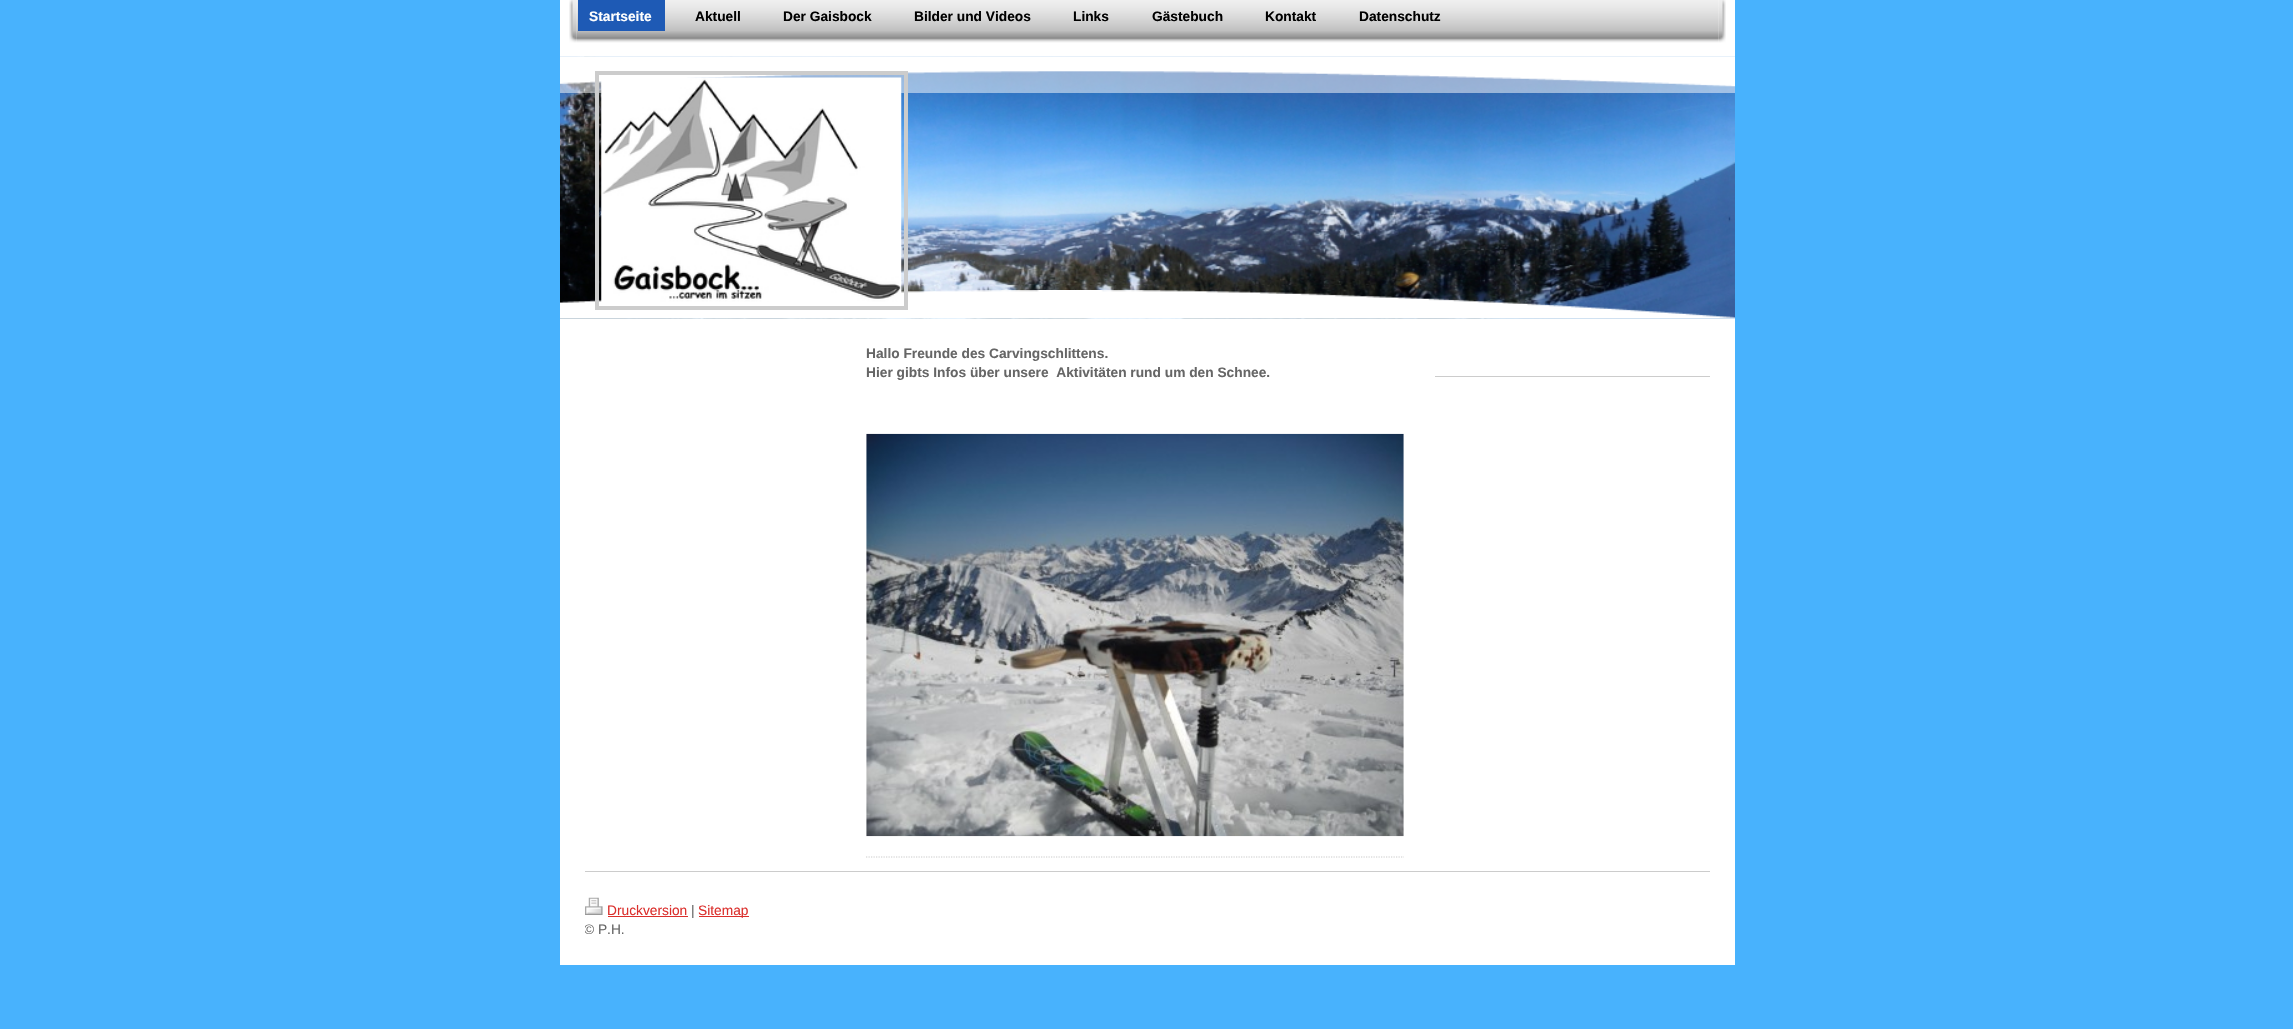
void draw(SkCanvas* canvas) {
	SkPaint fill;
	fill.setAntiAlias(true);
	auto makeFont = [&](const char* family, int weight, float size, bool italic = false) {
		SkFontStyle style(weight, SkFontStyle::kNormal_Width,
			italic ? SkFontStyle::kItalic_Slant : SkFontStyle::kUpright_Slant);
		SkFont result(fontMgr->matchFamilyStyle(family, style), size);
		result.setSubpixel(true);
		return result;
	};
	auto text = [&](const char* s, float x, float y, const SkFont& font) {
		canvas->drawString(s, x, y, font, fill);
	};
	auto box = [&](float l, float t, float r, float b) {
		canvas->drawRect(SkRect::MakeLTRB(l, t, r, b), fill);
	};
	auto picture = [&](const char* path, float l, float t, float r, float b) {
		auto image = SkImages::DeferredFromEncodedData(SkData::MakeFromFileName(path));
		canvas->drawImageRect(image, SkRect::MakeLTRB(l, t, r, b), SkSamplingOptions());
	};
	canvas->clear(0xFF48B2FD);
	fill.setColor(0xFFFFFFFF);
	box(560, 0, 1735, 56);
	picture("image0.png", 569, 0, 577, 43);
	picture("image1.png", 576, 0, 1719, 43);
	fill.setColor(0xFF1E5AB5);
	box(578, 0, 665, 31);
	picture("image2.png", 1718, 0, 1726, 43);
	picture("image3.png", 560, 56, 1735, 319);
	picture("image5.png", 560, 56, 1735, 87);
	fill.setColor(0x80FFFFFF);
	box(560, 56, 1735, 93);
	picture("image6.png", 560, 290, 1735, 319);
	fill.setStyle(SkPaint::kStroke_Style);
	fill.setStrokeWidth(4);
	fill.setColor(0xFFCCCCCC);
	canvas->drawRect(SkRect::MakeLTRB(597, 73, 906, 308), fill);
	picture("image4.png", 601, 77, 902, 302);
	fill.setStyle(SkPaint::kFill_Style);
	fill.setColor(0xFFFFFFFF);
	box(560, 319, 1735, 965);
	picture("image7.png", 866, 433, 1404, 837);
	fill.setStyle(SkPaint::kStroke_Style);
	fill.setStrokeWidth(1.2f);
	fill.setColor(0xFFCCCCCC);
	fill.setPathEffect(SkDashPathEffect::Make({{1.25f, 1.25f}}, 0));
	canvas->drawPath(SkPathBuilder().moveTo(866, 857).lineTo(1404, 857).detach(), fill);
	fill.setPathEffect(nullptr);
	fill.setStyle(SkPaint::kFill_Style);
	box(1435, 376, 1710, 377);
	box(585, 871, 1710, 872);
	picture("image8.png", 585, 897, 603, 915);
	fill.setColor(0xFFDB2F2C);
	box(608, 916, 688, 917);
	box(699, 916, 749, 917);
	auto font1 = makeFont("Liberation Sans", 700, 13.75f);
	fill.setColor(0xFFFFFFFF);
	text("Startseite", 589, 21, font1);
	fill.setColor(0xFF000000);
	text("Aktuell", 695, 21, font1);
	text("Der Gaisbock", 783, 21, font1);
	text("Bilder und Videos", 914, 21, font1);
	text("Links", 1073, 21, font1);
	text("Gästebuch", 1152, 21, font1);
	text("Kontakt", 1265, 21, font1);
	text("Datenschutz", 1359, 21, font1);
	fill.setColor(0xFF666666);
	text("Hallo Freunde des Carvingschlittens.", 866, 358, font1);
	text("Hier gibts Infos über unsere  Aktivitäten rund um den Schnee.", 866, 377, font1);
	auto font2 = makeFont("Liberation Sans", 400, 13.75f);
	fill.setColor(0xFFDB2F2C);
	text("Druckversion", 607, 915, font2);
	fill.setColor(0xFF666666);
	text("|", 691, 915, font2);
	fill.setColor(0xFFDB2F2C);
	text("Sitemap", 698, 915, font2);
	canvas->save();
	canvas->clipRect(SkRect::MakeLTRB(585, 898, 1710, 940));
	fill.setColor(0xFF666666);
	text("© P.H.", 584, 934, font2);
	canvas->restore();
}
